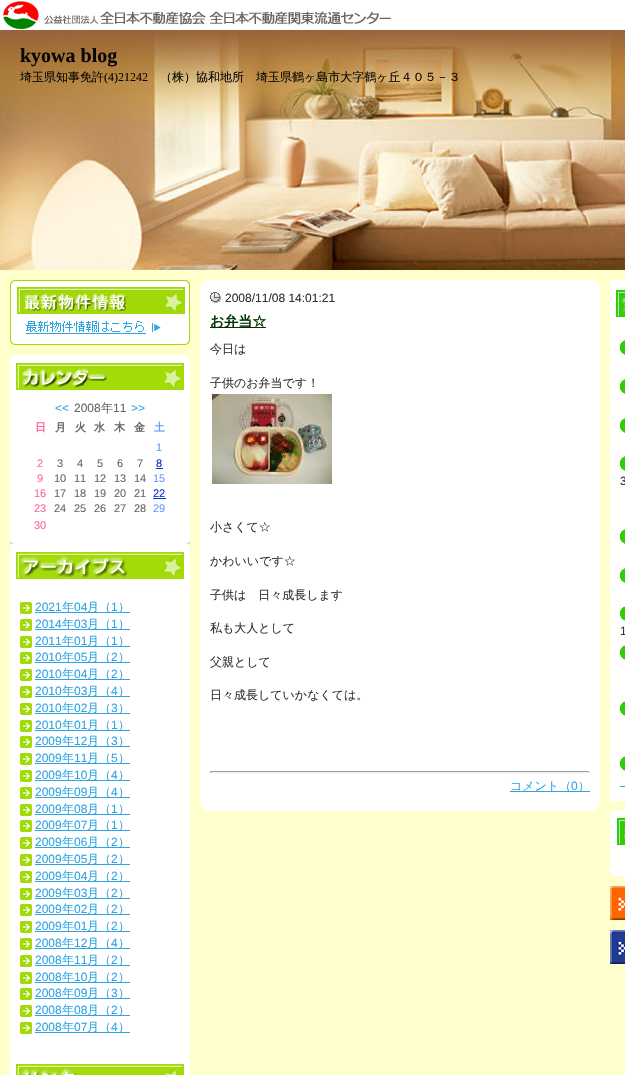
void draw(SkCanvas* canvas) {
	SkPaint fill;
	fill.setAntiAlias(true);
	auto makeFont = [&](const char* family, int weight, float size, bool italic = false) {
		SkFontStyle style(weight, SkFontStyle::kNormal_Width,
			italic ? SkFontStyle::kItalic_Slant : SkFontStyle::kUpright_Slant);
		SkFont result(fontMgr->matchFamilyStyle(family, style), size);
		result.setSubpixel(true);
		return result;
	};
	auto text = [&](const char* s, float x, float y, const SkFont& font) {
		canvas->drawString(s, x, y, font, fill);
	};
	auto box = [&](float l, float t, float r, float b) {
		canvas->drawRect(SkRect::MakeLTRB(l, t, r, b), fill);
	};
	auto picture = [&](const char* path, float l, float t, float r, float b) {
		auto image = SkImages::DeferredFromEncodedData(SkData::MakeFromFileName(path));
		canvas->drawImageRect(image, SkRect::MakeLTRB(l, t, r, b), SkSamplingOptions());
	};
	canvas->clear(0xFFFFFFCC);
	fill.setColor(0xFFFFFFFF);
	box(0, 0, 625, 30);
	picture("image0.png", 3, 0, 391, 30);
	picture("image1.png", 0, 30, 625, 270);
	picture("image2.png", 10, 280, 190, 345);
	box(10, 390, 190, 540);
	picture("image3.png", 10, 355, 190, 390);
	fill.setColor(0xFF0033CC);
	box(156, 468, 163, 469);
	box(153, 498, 166, 499);
	picture("image4.png", 10, 540, 190, 544);
	fill.setColor(0xFFFFFFFF);
	box(10, 579, 190, 1056);
	picture("image5.png", 10, 544, 190, 579);
	picture("image6.png", 20, 602, 32, 614);
	fill.setColor(0xFF2DA5E2);
	box(35, 612, 130, 613);
	picture("image6.png", 20, 619, 32, 631);
	box(35, 629, 130, 630);
	picture("image6.png", 20, 636, 32, 648);
	box(35, 646, 130, 647);
	picture("image6.png", 20, 652, 32, 664);
	box(35, 662, 130, 663);
	picture("image6.png", 20, 669, 32, 681);
	box(35, 679, 130, 680);
	picture("image6.png", 20, 686, 32, 698);
	box(35, 696, 130, 697);
	picture("image6.png", 20, 703, 32, 715);
	box(35, 713, 130, 714);
	picture("image6.png", 20, 720, 32, 732);
	box(35, 730, 130, 731);
	picture("image6.png", 20, 736, 32, 748);
	box(35, 746, 130, 747);
	picture("image6.png", 20, 753, 32, 765);
	box(35, 763, 130, 764);
	picture("image6.png", 20, 770, 32, 782);
	box(35, 780, 130, 781);
	picture("image6.png", 20, 787, 32, 799);
	box(35, 797, 130, 798);
	picture("image6.png", 20, 804, 32, 816);
	box(35, 814, 130, 815);
	picture("image6.png", 20, 820, 32, 832);
	box(35, 830, 130, 831);
	picture("image6.png", 20, 837, 32, 849);
	box(35, 847, 130, 848);
	picture("image6.png", 20, 854, 32, 866);
	box(35, 864, 130, 865);
	picture("image6.png", 20, 871, 32, 883);
	box(35, 881, 130, 882);
	picture("image6.png", 20, 888, 32, 900);
	box(35, 898, 130, 899);
	picture("image6.png", 20, 904, 32, 916);
	box(35, 914, 130, 915);
	picture("image6.png", 20, 921, 32, 933);
	box(35, 931, 130, 932);
	picture("image6.png", 20, 938, 32, 950);
	box(35, 948, 130, 949);
	picture("image6.png", 20, 955, 32, 967);
	box(35, 965, 130, 966);
	picture("image6.png", 20, 972, 32, 984);
	box(35, 982, 130, 983);
	picture("image6.png", 20, 988, 32, 1000);
	box(35, 998, 130, 999);
	picture("image6.png", 20, 1005, 32, 1017);
	box(35, 1015, 130, 1016);
	picture("image6.png", 20, 1022, 32, 1034);
	box(35, 1032, 130, 1033);
	picture("image7.png", 10, 1056, 190, 1075);
	fill.setColor(0xFFFFFFFF);
	box(200, 288, 600, 803);
	picture("image8.png", 200, 280, 600, 288);
	picture("image9.png", 210, 292, 221, 303);
	fill.setColor(0xFF003300);
	box(210, 327, 266, 328);
	picture("image10.png", 212, 394, 332, 484);
	fill.setColor(0xFF9F9F9F);
	box(210, 771, 590, 772);
	fill.setColor(0xFFEEEEEE);
	box(589, 771, 590, 773);
	box(210, 772, 590, 773);
	fill.setColor(0xFF9F9F9F);
	box(210, 771, 211, 773);
	fill.setColor(0xFF2DA5E2);
	box(510, 791, 590, 792);
	picture("image11.png", 200, 803, 600, 811);
	fill.setColor(0xFFFFFFFF);
	box(610, 317, 625, 801);
	picture("image12.png", 610, 280, 625, 317);
	picture("image13.png", 620, 340, 625, 355);
	picture("image13.png", 620, 379, 625, 394);
	picture("image13.png", 620, 418, 625, 433);
	picture("image13.png", 620, 456, 625, 471);
	picture("image13.png", 620, 529, 625, 544);
	picture("image13.png", 620, 568, 625, 583);
	picture("image14.png", 620, 606, 625, 621);
	picture("image14.png", 620, 645, 625, 660);
	picture("image14.png", 620, 701, 625, 716);
	picture("image14.png", 620, 756, 625, 771);
	fill.setColor(0xFF2DA5E2);
	box(620, 786, 625, 787);
	picture("image15.png", 610, 811, 625, 876);
	picture("image16.png", 610, 886, 625, 920);
	picture("image17.png", 610, 930, 625, 964);
	auto font1 = makeFont("Liberation Serif", 700, 20);
	fill.setColor(0xFF080603);
	text("kyowa blog", 20, 62, font1);
	auto font2 = makeFont("WenQuanYi Zen Hei", 500, 12);
	text("埼玉県知事免許", 20, 81, font2);
	auto font3 = makeFont("Liberation Serif", 400, 12);
	text("(4)21242", 104, 81, font3);
	text("（株）協和地所　埼玉県鶴ヶ島市大字鶴ヶ丘４０５－３", 160, 81, font2);
	auto font4 = makeFont("Liberation Sans", 400, 12);
	fill.setColor(0xFF2DA5E2);
	text("<<", 55, 412, font4);
	fill.setColor(0xFF666666);
	text("2008", 74, 412, font4);
	text("年", 101, 412, font2);
	text("11", 113, 412, font4);
	fill.setColor(0xFF2DA5E2);
	text(">>", 131, 412, font4);
	auto font5 = makeFont("WenQuanYi Zen Hei", 700, 11);
	fill.setColor(0xFFFF6699);
	text("日", 35, 431, font5);
	fill.setColor(0xFF666666);
	text("月", 55, 431, font5);
	text("火", 75, 431, font5);
	text("水", 94, 431, font5);
	text("木", 114, 431, font5);
	text("金", 134, 431, font5);
	fill.setColor(0xFF6699FF);
	text("土", 154, 431, font5);
	auto font6 = makeFont("Liberation Sans", 400, 11);
	text("1", 156, 451, font6);
	fill.setColor(0xFFFF6699);
	text("2", 37, 467, font6);
	fill.setColor(0xFF666666);
	text("3", 57, 467, font6);
	text("4", 77, 467, font6);
	text("5", 97, 467, font6);
	text("6", 117, 467, font6);
	text("7", 137, 467, font6);
	fill.setColor(0xFF0033CC);
	text("8", 156, 467, font6);
	fill.setColor(0xFFFF6699);
	text("9", 37, 482, font6);
	fill.setColor(0xFF666666);
	text("10", 54, 482, font6);
	text("11", 74, 482, font6);
	text("12", 94, 482, font6);
	text("13", 114, 482, font6);
	text("14", 134, 482, font6);
	fill.setColor(0xFF6699FF);
	text("15", 153, 482, font6);
	fill.setColor(0xFFFF6699);
	text("16", 34, 497, font6);
	fill.setColor(0xFF666666);
	text("17", 54, 497, font6);
	text("18", 74, 497, font6);
	text("19", 94, 497, font6);
	text("20", 114, 497, font6);
	text("21", 134, 497, font6);
	fill.setColor(0xFF0033CC);
	text("22", 153, 497, font6);
	fill.setColor(0xFFFF6699);
	text("23", 34, 512, font6);
	fill.setColor(0xFF666666);
	text("24", 54, 512, font6);
	text("25", 74, 512, font6);
	text("26", 94, 512, font6);
	text("27", 114, 512, font6);
	text("28", 134, 512, font6);
	fill.setColor(0xFF6699FF);
	text("29", 153, 512, font6);
	fill.setColor(0xFFFF6699);
	text("30", 34, 529, font6);
	fill.setColor(0xFF2DA5E2);
	text("2021", 35, 611, font4);
	text("年", 62, 611, font2);
	text("04", 74, 611, font4);
	text("月（", 87, 611, font2);
	text("1", 111, 611, font4);
	text("）", 118, 611, font2);
	text("2014", 35, 628, font4);
	text("年", 62, 628, font2);
	text("03", 74, 628, font4);
	text("月（", 87, 628, font2);
	text("1", 111, 628, font4);
	text("）", 118, 628, font2);
	text("2011", 35, 645, font4);
	text("年", 62, 645, font2);
	text("01", 74, 645, font4);
	text("月（", 87, 645, font2);
	text("1", 111, 645, font4);
	text("）", 118, 645, font2);
	text("2010", 35, 661, font4);
	text("年", 62, 661, font2);
	text("05", 74, 661, font4);
	text("月（", 87, 661, font2);
	text("2", 111, 661, font4);
	text("）", 118, 661, font2);
	text("2010", 35, 678, font4);
	text("年", 62, 678, font2);
	text("04", 74, 678, font4);
	text("月（", 87, 678, font2);
	text("2", 111, 678, font4);
	text("）", 118, 678, font2);
	text("2010", 35, 695, font4);
	text("年", 62, 695, font2);
	text("03", 74, 695, font4);
	text("月（", 87, 695, font2);
	text("4", 111, 695, font4);
	text("）", 118, 695, font2);
	text("2010", 35, 712, font4);
	text("年", 62, 712, font2);
	text("02", 74, 712, font4);
	text("月（", 87, 712, font2);
	text("3", 111, 712, font4);
	text("）", 118, 712, font2);
	text("2010", 35, 729, font4);
	text("年", 62, 729, font2);
	text("01", 74, 729, font4);
	text("月（", 87, 729, font2);
	text("1", 111, 729, font4);
	text("）", 118, 729, font2);
	text("2009", 35, 745, font4);
	text("年", 62, 745, font2);
	text("12", 74, 745, font4);
	text("月（", 87, 745, font2);
	text("3", 111, 745, font4);
	text("）", 118, 745, font2);
	text("2009", 35, 762, font4);
	text("年", 62, 762, font2);
	text("11", 74, 762, font4);
	text("月（", 87, 762, font2);
	text("5", 111, 762, font4);
	text("）", 118, 762, font2);
	text("2009", 35, 779, font4);
	text("年", 62, 779, font2);
	text("10", 74, 779, font4);
	text("月（", 87, 779, font2);
	text("4", 111, 779, font4);
	text("）", 118, 779, font2);
	text("2009", 35, 796, font4);
	text("年", 62, 796, font2);
	text("09", 74, 796, font4);
	text("月（", 87, 796, font2);
	text("4", 111, 796, font4);
	text("）", 118, 796, font2);
	text("2009", 35, 813, font4);
	text("年", 62, 813, font2);
	text("08", 74, 813, font4);
	text("月（", 87, 813, font2);
	text("1", 111, 813, font4);
	text("）", 118, 813, font2);
	text("2009", 35, 829, font4);
	text("年", 62, 829, font2);
	text("07", 74, 829, font4);
	text("月（", 87, 829, font2);
	text("1", 111, 829, font4);
	text("）", 118, 829, font2);
	text("2009", 35, 846, font4);
	text("年", 62, 846, font2);
	text("06", 74, 846, font4);
	text("月（", 87, 846, font2);
	text("2", 111, 846, font4);
	text("）", 118, 846, font2);
	text("2009", 35, 863, font4);
	text("年", 62, 863, font2);
	text("05", 74, 863, font4);
	text("月（", 87, 863, font2);
	text("2", 111, 863, font4);
	text("）", 118, 863, font2);
	text("2009", 35, 880, font4);
	text("年", 62, 880, font2);
	text("04", 74, 880, font4);
	text("月（", 87, 880, font2);
	text("2", 111, 880, font4);
	text("）", 118, 880, font2);
	text("2009", 35, 897, font4);
	text("年", 62, 897, font2);
	text("03", 74, 897, font4);
	text("月（", 87, 897, font2);
	text("2", 111, 897, font4);
	text("）", 118, 897, font2);
	text("2009", 35, 913, font4);
	text("年", 62, 913, font2);
	text("02", 74, 913, font4);
	text("月（", 87, 913, font2);
	text("2", 111, 913, font4);
	text("）", 118, 913, font2);
	text("2009", 35, 930, font4);
	text("年", 62, 930, font2);
	text("01", 74, 930, font4);
	text("月（", 87, 930, font2);
	text("2", 111, 930, font4);
	text("）", 118, 930, font2);
	text("2008", 35, 947, font4);
	text("年", 62, 947, font2);
	text("12", 74, 947, font4);
	text("月（", 87, 947, font2);
	text("4", 111, 947, font4);
	text("）", 118, 947, font2);
	text("2008", 35, 964, font4);
	text("年", 62, 964, font2);
	text("11", 74, 964, font4);
	text("月（", 87, 964, font2);
	text("2", 111, 964, font4);
	text("）", 118, 964, font2);
	text("2008", 35, 981, font4);
	text("年", 62, 981, font2);
	text("10", 74, 981, font4);
	text("月（", 87, 981, font2);
	text("2", 111, 981, font4);
	text("）", 118, 981, font2);
	text("2008", 35, 997, font4);
	text("年", 62, 997, font2);
	text("09", 74, 997, font4);
	text("月（", 87, 997, font2);
	text("3", 111, 997, font4);
	text("）", 118, 997, font2);
	text("2008", 35, 1014, font4);
	text("年", 62, 1014, font2);
	text("08", 74, 1014, font4);
	text("月（", 87, 1014, font2);
	text("2", 111, 1014, font4);
	text("）", 118, 1014, font2);
	text("2008", 35, 1031, font4);
	text("年", 62, 1031, font2);
	text("07", 74, 1031, font4);
	text("月（", 87, 1031, font2);
	text("4", 111, 1031, font4);
	text("）", 118, 1031, font2);
	fill.setColor(0xFF333333);
	text("2008/11/08 14:01:21", 225, 302, font4);
	auto font7 = makeFont("WenQuanYi Zen Hei", 700, 14);
	fill.setColor(0xFF003300);
	text("お弁当☆", 210, 326, font7);
	fill.setColor(0xFF333333);
	text("今日は", 210, 353, font2);
	text("子供のお弁当です！", 210, 387, font2);
	text("小さくて☆", 210, 531, font2);
	text("かわいいです☆", 210, 565, font2);
	text("子供は　日々成長します", 210, 599, font2);
	text("私も大人として", 210, 632, font2);
	text("父親として", 210, 666, font2);
	text("日々成長していかなくては。", 210, 699, font2);
	fill.setColor(0xFF2DA5E2);
	text("コメント（", 510, 790, font2);
	text("0", 571, 790, font4);
	text("）", 578, 790, font2);
	fill.setColor(0xFF333333);
	text("3", 620, 485, font4);
	text("1", 620, 635, font4);
}
